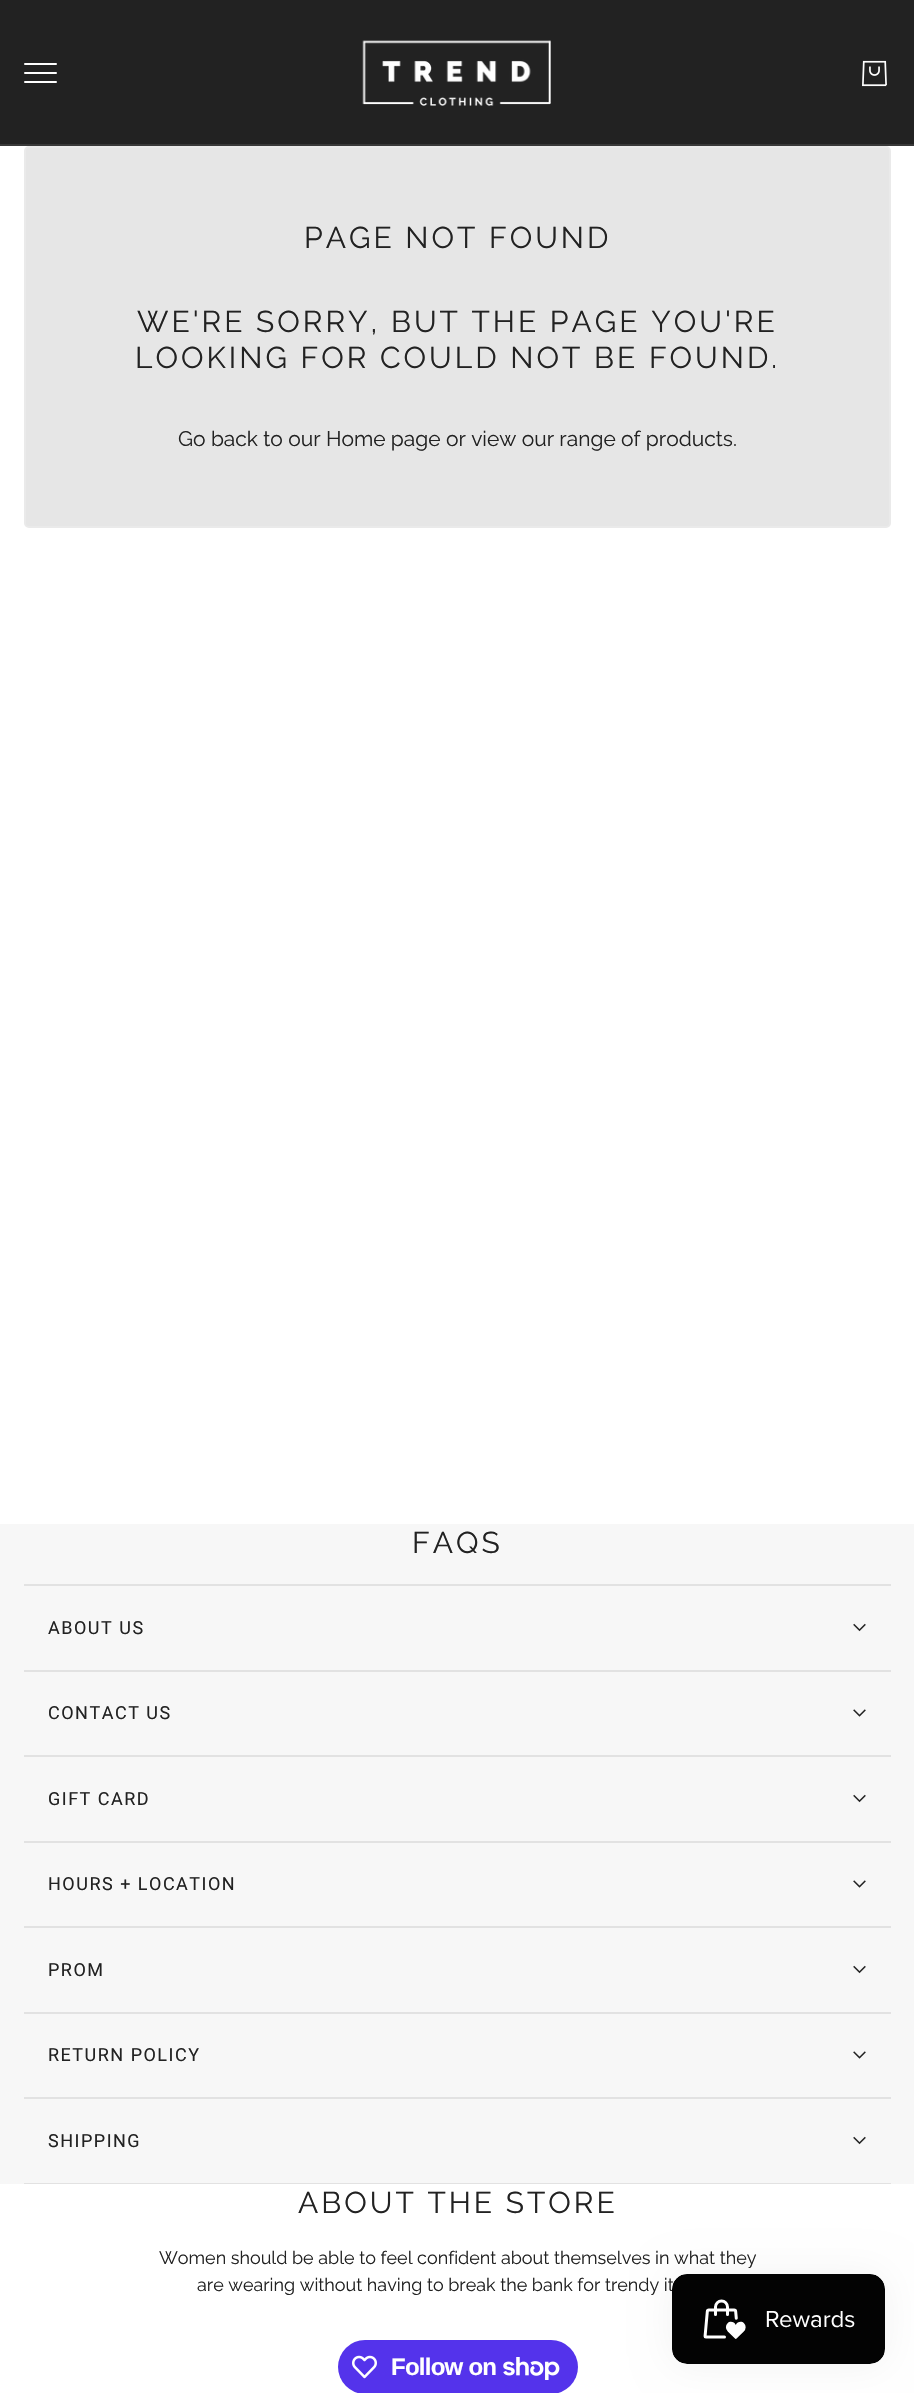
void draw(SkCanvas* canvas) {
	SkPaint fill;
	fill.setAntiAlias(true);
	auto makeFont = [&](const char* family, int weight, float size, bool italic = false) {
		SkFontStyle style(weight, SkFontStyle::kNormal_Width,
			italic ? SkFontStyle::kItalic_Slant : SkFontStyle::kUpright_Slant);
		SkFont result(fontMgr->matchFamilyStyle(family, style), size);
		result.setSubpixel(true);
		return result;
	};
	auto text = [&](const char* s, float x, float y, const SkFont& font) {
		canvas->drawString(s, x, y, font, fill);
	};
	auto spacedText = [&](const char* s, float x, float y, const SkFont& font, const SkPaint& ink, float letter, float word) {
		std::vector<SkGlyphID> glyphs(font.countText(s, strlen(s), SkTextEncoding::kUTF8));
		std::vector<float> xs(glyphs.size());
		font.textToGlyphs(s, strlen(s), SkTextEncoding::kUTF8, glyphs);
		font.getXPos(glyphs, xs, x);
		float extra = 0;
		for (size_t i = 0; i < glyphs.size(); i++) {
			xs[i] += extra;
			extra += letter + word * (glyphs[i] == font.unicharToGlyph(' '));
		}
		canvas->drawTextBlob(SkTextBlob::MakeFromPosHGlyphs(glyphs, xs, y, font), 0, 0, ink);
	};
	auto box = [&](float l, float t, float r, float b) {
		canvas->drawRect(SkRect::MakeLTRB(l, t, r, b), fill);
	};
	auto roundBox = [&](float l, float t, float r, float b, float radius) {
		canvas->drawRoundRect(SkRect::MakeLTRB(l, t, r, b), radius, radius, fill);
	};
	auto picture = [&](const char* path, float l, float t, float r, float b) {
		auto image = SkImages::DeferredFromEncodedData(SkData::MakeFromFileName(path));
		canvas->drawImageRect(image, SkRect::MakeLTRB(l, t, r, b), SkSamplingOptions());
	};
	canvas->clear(0xFFFFFFFF);
	fill.setColor(0xFF222222);
	box(0, 0, 914, 144);
	fill.setColor(0xFFFFFFFF);
	roundBox(24, 63, 57, 65, 1);
	roundBox(24, 72, 57, 74, 1);
	roundBox(24, 81, 57, 83, 1);
	picture("image0.png", 362, 40, 551, 106);
	picture("image1.png", 862, 60, 887, 87);
	fill.setColor(0xFF383838);
	box(0, 144, 914, 146);
	fill.setColor(0xFFE6E6E6);
	canvas->drawRoundRect(SkRect::MakeLTRB(25, 147, 890, 527), 4, 4, fill);
	fill.setStyle(SkPaint::kStroke_Style);
	fill.setStrokeWidth(2);
	fill.setColor(0xFFEAEAEA);
	canvas->drawRoundRect(SkRect::MakeLTRB(25, 147, 890, 527), 4, 4, fill);
	fill.setStyle(SkPaint::kFill_Style);
	fill.setColor(0xFFF7F7F7);
	box(0, 1524, 914, 2184);
	fill.setColor(0xFFE2E2E2);
	box(24, 2183, 891, 2184);
	box(24, 1584, 891, 1586);
	box(24, 1670, 891, 1672);
	picture("image2.png", 853, 1623, 866, 1632);
	box(24, 1755, 891, 1757);
	picture("image3.png", 853, 1709, 866, 1717);
	box(24, 1841, 891, 1843);
	picture("image2.png", 853, 1794, 866, 1803);
	picture("image3.png", 853, 1880, 866, 1888);
	box(24, 1926, 891, 1928);
	box(24, 2012, 891, 2014);
	picture("image2.png", 853, 1965, 866, 1974);
	box(24, 2097, 891, 2099);
	picture("image3.png", 853, 2051, 866, 2059);
	picture("image2.png", 853, 2136, 866, 2145);
	fill.setColor(0xFF5433EB);
	roundBox(338, 2340, 578, 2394, 27);
	picture("image4.png", 352, 2355, 377, 2379);
	picture("image5.png", 503, 2357, 560, 2380);
	fill.setColor(0x0D000000);
	fill.setMaskFilter(SkMaskFilter::MakeBlur(kNormal_SkBlurStyle, 19));
	canvas->drawRoundRect(SkRect::MakeLTRB(672, 2274, 885, 2364), 15, 15, fill);
	fill.setMaskFilter(nullptr);
	auto font1 = makeFont("Raleway", 400, 30);
	fill.setColor(0xFF222222);
	spacedText("PAGE NOT FOUND", 304, 248, font1, fill, 3, 0);
	spacedText("WE'RE SORRY, BUT THE PAGE YOU'RE", 137, 332, font1, fill, 3, 0);
	spacedText("LOOKING FOR COULD NOT BE FOUND.", 135, 368, font1, fill, 3, 0);
	auto font2 = makeFont("Raleway", 400, 21);
	text("Go back to our Home page or view our range of products.", 178, 446, font2);
	spacedText("FAQS", 412, 1553, font1, fill, 3, 0);
	auto font3 = makeFont("Roboto", 400, 18);
	spacedText("ABOUT US", 48, 1634, font3, fill, 1.5f, 0);
	spacedText("CONTACT US", 48, 1719, font3, fill, 1.5f, 0);
	spacedText("GIFT CARD", 48, 1805, font3, fill, 1.5f, 0);
	spacedText("HOURS + LOCATION", 48, 1890, font3, fill, 1.5f, 0);
	spacedText("PROM", 48, 1976, font3, fill, 1.5f, 0);
	spacedText("RETURN POLICY", 48, 2061, font3, fill, 1.5f, 0);
	spacedText("SHIPPING", 48, 2147, font3, fill, 1.5f, 0);
	spacedText("ABOUT THE STORE", 298, 2213, font1, fill, 3, 0);
	auto font4 = makeFont("Raleway", 400, 18);
	text("Women should be able to feel confident about themselves in what they", 159, 2264, font4);
	text("are wearing without having to break the bank for trendy it", 197, 2291, font4);
	auto font5 = makeFont("Liberation Sans", 700, 24);
	fill.setColor(0xFFFFFFFF);
	spacedText("Follow on", 391, 2375, font5, fill, -0.75f, 0);
	picture("image6.png", 672, 2274, 885, 2364);
}
